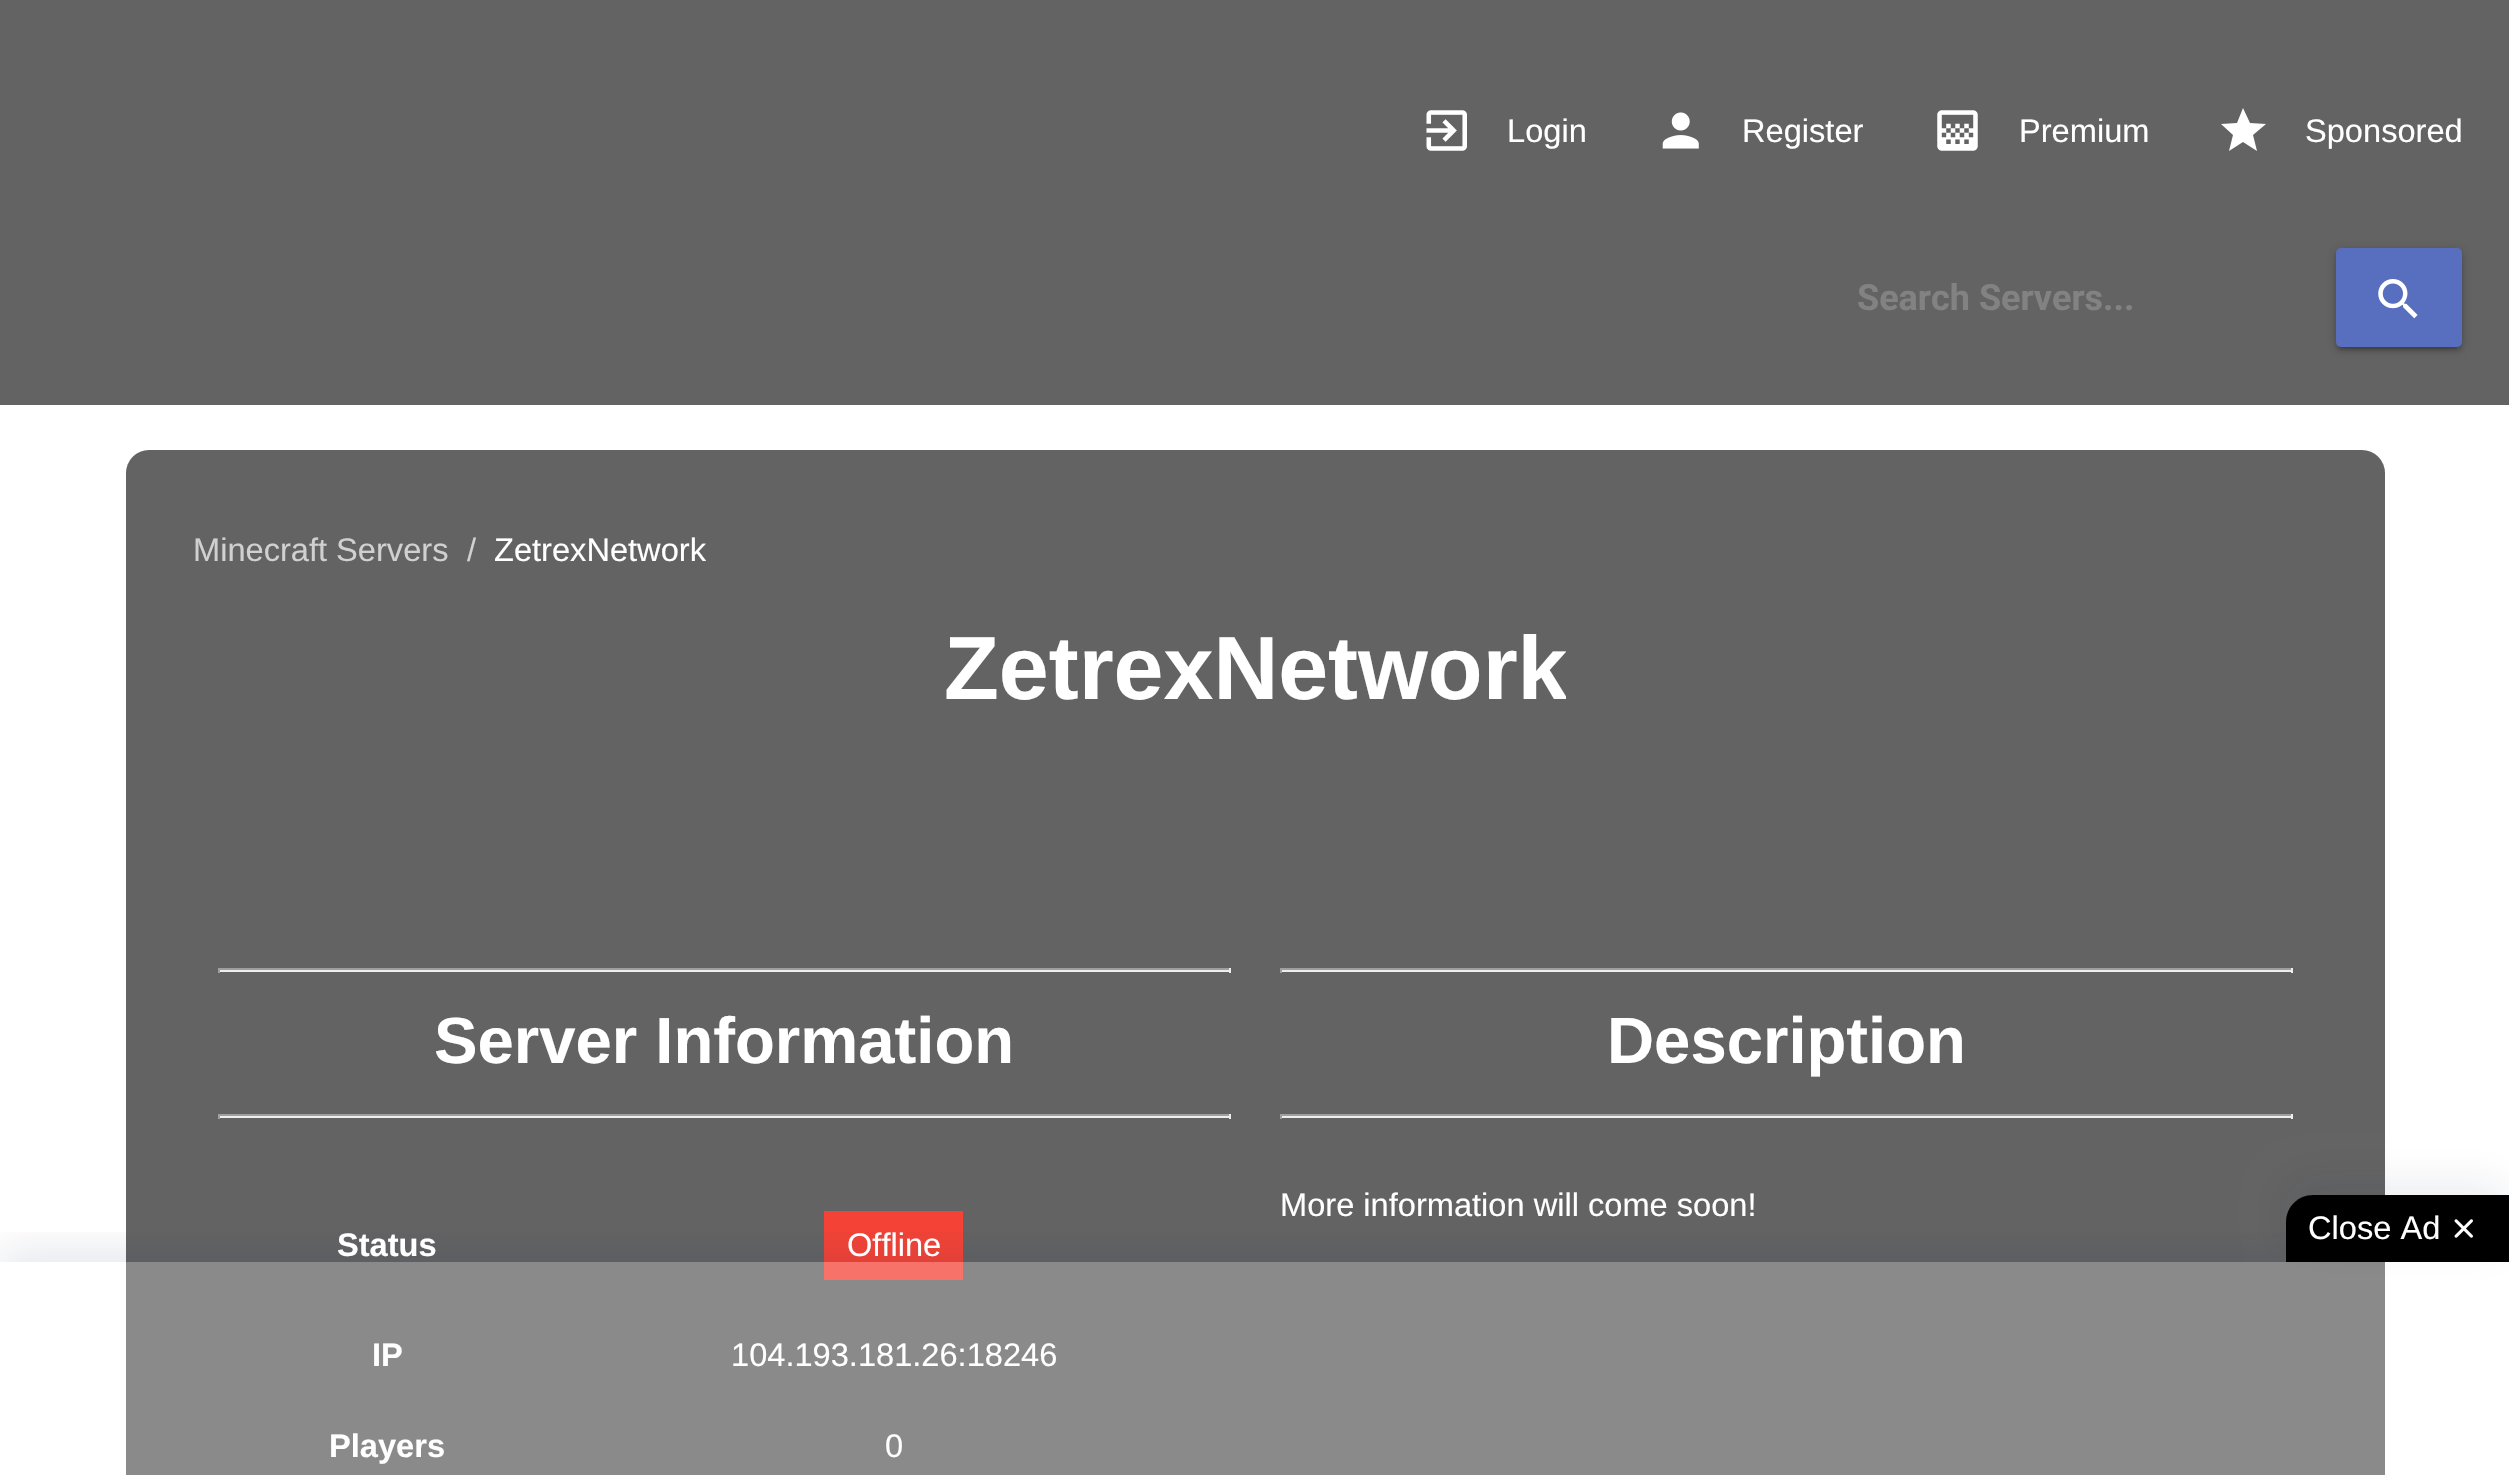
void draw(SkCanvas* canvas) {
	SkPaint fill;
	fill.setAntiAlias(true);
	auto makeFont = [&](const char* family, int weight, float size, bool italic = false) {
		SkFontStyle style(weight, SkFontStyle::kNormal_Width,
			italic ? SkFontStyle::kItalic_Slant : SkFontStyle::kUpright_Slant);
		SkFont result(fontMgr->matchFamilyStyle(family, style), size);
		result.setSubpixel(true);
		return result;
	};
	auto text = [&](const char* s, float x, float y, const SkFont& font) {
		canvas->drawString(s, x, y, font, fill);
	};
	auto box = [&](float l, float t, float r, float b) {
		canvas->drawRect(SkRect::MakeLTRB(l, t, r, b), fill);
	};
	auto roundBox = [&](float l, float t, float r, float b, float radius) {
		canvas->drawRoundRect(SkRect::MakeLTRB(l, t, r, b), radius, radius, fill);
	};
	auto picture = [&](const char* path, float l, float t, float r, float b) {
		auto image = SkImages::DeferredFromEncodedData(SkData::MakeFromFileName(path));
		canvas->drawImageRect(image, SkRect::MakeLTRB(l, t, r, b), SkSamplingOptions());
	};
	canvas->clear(0xFFFFFFFF);
	fill.setColor(0xFF636363);
	box(0, 0, 2509, 405);
	picture("image0.png", 1426, 110, 1467, 151);
	picture("image1.png", 1662, 112, 1699, 149);
	picture("image2.png", 1937, 110, 1978, 151);
	fill.setColor(0xFFFFFFFF);
	canvas->drawPath(SkPathBuilder().moveTo(2243, 142).lineTo(2229, 151).lineTo(2233, 135).lineTo(2221, 124).lineTo(2237, 123).lineTo(2243, 108).lineTo(2250, 123).lineTo(2266, 124).lineTo(2253, 135).lineTo(2257, 151).close().detach(), fill);
	fill.setColor(0x33000000);
	fill.setMaskFilter(SkMaskFilter::MakeBlur(kNormal_SkBlurStyle, 5.5f));
	canvas->drawRoundRect(SkRect::MakeLTRB(2336, 250, 2462, 349), 5, 5, fill);
	fill.setMaskFilter(nullptr);
	fill.setColor(0x1F000000);
	fill.setMaskFilter(SkMaskFilter::MakeBlur(kNormal_SkBlurStyle, 1));
	canvas->drawRect(SkRect::MakeLTRB(2340, 259, 2457, 349), fill);
	fill.setMaskFilter(nullptr);
	fill.setColor(0x24000000);
	fill.setMaskFilter(SkMaskFilter::MakeBlur(kNormal_SkBlurStyle, 2));
	canvas->drawRoundRect(SkRect::MakeLTRB(2336, 252, 2462, 351), 5, 5, fill);
	fill.setMaskFilter(nullptr);
	fill.setColor(0xFF586EBE);
	roundBox(2336, 248, 2462, 347, 5);
	picture("image3.png", 2378, 279, 2418, 319);
	fill.setColor(0xFF636363);
	roundBox(126, 450, 2385, 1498, 23);
	fill.setColor(0xFF9F9F9F);
	box(218, 968, 1231, 970);
	fill.setColor(0xFFEEEEEE);
	box(1229, 968, 1231, 973);
	box(218, 970, 1231, 972);
	fill.setColor(0xFF9F9F9F);
	box(218, 968, 220, 973);
	box(218, 1114, 1231, 1116);
	fill.setColor(0xFFEEEEEE);
	box(1229, 1114, 1231, 1119);
	box(218, 1116, 1231, 1118);
	fill.setColor(0xFF9F9F9F);
	box(218, 1114, 220, 1119);
	fill.setColor(0xFFF44336);
	box(824, 1211, 963, 1280);
	fill.setColor(0xFF9F9F9F);
	box(1280, 968, 2293, 970);
	fill.setColor(0xFFEEEEEE);
	box(2291, 968, 2293, 973);
	box(1280, 970, 2293, 972);
	fill.setColor(0xFF9F9F9F);
	box(1280, 968, 1282, 973);
	box(1280, 1114, 2293, 1116);
	fill.setColor(0xFFEEEEEE);
	box(2291, 1114, 2293, 1119);
	box(1280, 1116, 2293, 1118);
	fill.setColor(0xFF9F9F9F);
	box(1280, 1114, 1282, 1119);
	canvas->save();
	canvas->clipRect(SkRect::MakeLTRB(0, 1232, 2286, 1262));
	fill.setColor(0x1A09204C);
	fill.setMaskFilter(SkMaskFilter::MakeBlur(kNormal_SkBlurStyle, 20));
	canvas->drawRect(SkRect::MakeLTRB(0, 1249, 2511, 1463), fill);
	fill.setMaskFilter(nullptr);
	canvas->restore();
	auto font1 = makeFont("Liberation Sans", 400, 32.6f);
	fill.setColor(0xFFFFFFFF);
	text("Login", 1507, 142, font1);
	text("Register", 1742, 142, font1);
	text("Premium", 2019, 142, font1);
	text("Sponsored", 2305, 142, font1);
	auto font2 = makeFont("Roboto", 700, 36);
	fill.setColor(0xFF828282);
	text("Search Servers...", 1857, 310, font2);
	fill.setColor(0xFFD0D0D0);
	text("Minecraft Servers", 193, 561, font1);
	text("/", 467, 561, font1);
	fill.setColor(0xFFFFFFFF);
	text("ZetrexNetwork", 494, 561, font1);
	canvas->save();
	canvas->clipRect(SkRect::MakeLTRB(945, 621, 1566, 720));
	auto font3 = makeFont("Liberation Sans", 700, 89.75f);
	text("ZetrexNetwork", 944, 699, font3);
	canvas->restore();
	auto font4 = makeFont("Liberation Sans", 700, 65.25f);
	text("Server Information", 434, 1063, font4);
	auto font5 = makeFont("Liberation Sans", 700, 32.6f);
	text("Status", 337, 1256, font5);
	text("Offline", 847, 1256, font1);
	text("IP", 372, 1366, font5);
	text("104.193.181.26:18246", 731, 1366, font1);
	text("Players", 329, 1457, font5);
	text("0", 885, 1457, font1);
	text("Description", 1607, 1063, font4);
	text("More information will come soon!", 1280, 1216, font1);
	fill.setColor(0x40FFFFFF);
	box(126, 1262, 2385, 1475);
	fill.setColor(0x1409204C);
	fill.setMaskFilter(SkMaskFilter::MakeBlur(kNormal_SkBlurStyle, 20));
	canvas->drawRoundRect(SkRect::MakeLTRB(2286, 1181, 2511, 1249), 27, 27, fill);
	fill.setMaskFilter(nullptr);
	fill.setColor(0xFF000000);
	canvas->drawPath(SkPathBuilder().moveTo(2313, 1195).lineTo(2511, 1195).lineTo(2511, 1262).lineTo(2286, 1262).lineTo(2286, 1222).cubicTo(2286, 1207, 2298, 1195, 2313, 1195).close().detach(), fill);
	fill.setColor(0xFFFFFFFF);
	text("Close Ad", 2308, 1239, font1);
	picture("image4.png", 2454, 1219, 2473, 1238);
}
